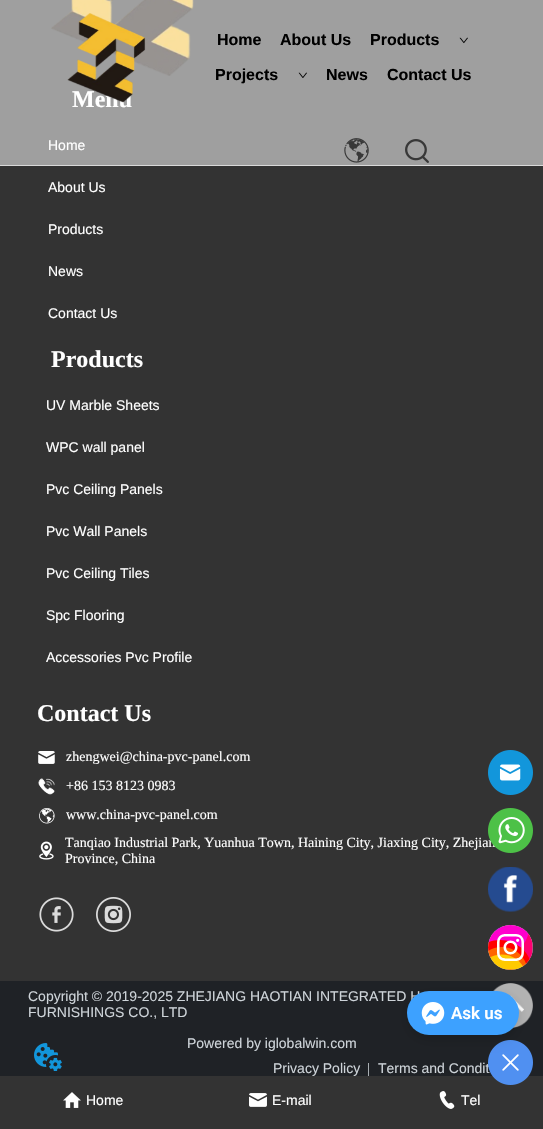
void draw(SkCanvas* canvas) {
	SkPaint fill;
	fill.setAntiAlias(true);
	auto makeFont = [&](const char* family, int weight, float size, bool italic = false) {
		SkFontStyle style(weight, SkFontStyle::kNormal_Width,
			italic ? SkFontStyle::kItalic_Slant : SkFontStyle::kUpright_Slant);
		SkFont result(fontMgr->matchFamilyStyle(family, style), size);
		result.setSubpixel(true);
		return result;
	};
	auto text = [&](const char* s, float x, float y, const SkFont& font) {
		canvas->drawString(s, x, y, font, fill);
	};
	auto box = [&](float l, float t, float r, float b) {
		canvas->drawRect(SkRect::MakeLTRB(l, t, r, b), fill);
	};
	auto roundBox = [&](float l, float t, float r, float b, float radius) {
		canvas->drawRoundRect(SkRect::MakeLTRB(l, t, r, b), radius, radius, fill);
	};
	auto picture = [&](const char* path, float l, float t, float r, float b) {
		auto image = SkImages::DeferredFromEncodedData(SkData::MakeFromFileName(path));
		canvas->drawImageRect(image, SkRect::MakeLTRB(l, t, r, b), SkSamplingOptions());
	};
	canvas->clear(0xFF333333);
	fill.setColor(0xFF9F9F9F);
	box(0, 0, 543, 165);
	picture("image1.png", 459, 37, 468, 44);
	picture("image2.png", 298, 72, 307, 78);
	picture("image3.png", 344, 138, 369, 163);
	picture("image4.png", 405, 139, 429, 163);
	fill.setColor(0xFFD9D9D9);
	box(0, 165, 543, 166);
	picture("image5.png", 51, 0, 194, 76);
	picture("image6.png", 38, 751, 55, 764);
	picture("image7.png", 488, 750, 533, 795);
	picture("image9.png", 488, 867, 533, 912);
	picture("image10.png", 488, 925, 533, 970);
	fill.setColor(0xFF1F2226);
	box(0, 981, 543, 1076);
	picture("image11.png", 493, 983, 533, 1028);
	picture("image13.png", 38, 778, 55, 795);
	picture("image14.png", 39, 808, 55, 824);
	picture("image15.png", 39, 841, 54, 860);
	picture("image16.png", 39, 897, 74, 932);
	picture("image17.png", 96, 897, 131, 932);
	fill.setColor(0xFFA9AFB3);
	box(368, 1063, 369, 1077);
	fill.setColor(0xFF333333);
	box(368, 1076, 369, 1077);
	picture("image18.png", 63, 1092, 81, 1108);
	picture("image19.png", 249, 1093, 267, 1107);
	picture("image20.png", 439, 1091, 455, 1109);
	picture("image22.png", 34, 1043, 62, 1071);
	auto font1 = makeFont("Liberation Sans", 700, 16);
	fill.setColor(0xFF000000);
	text("Home", 217, 45, font1);
	text("About Us", 280, 45, font1);
	text("Products", 370, 45, font1);
	text("Projects", 215, 80, font1);
	text("News", 326, 80, font1);
	text("Contact Us", 387, 80, font1);
	auto font2 = makeFont("Liberation Serif", 700, 24);
	fill.setColor(0xFFFFFFFF);
	text("Menu", 72, 107, font2);
	picture("image0.png", 67, 13, 146, 103);
	auto font3 = makeFont("Liberation Sans", 400, 14);
	text("Home", 48, 150, font3);
	text("About Us", 48, 192, font3);
	text("Products", 48, 234, font3);
	text("News", 48, 276, font3);
	text("Contact Us", 48, 318, font3);
	text("Products", 51, 367, font2);
	text("UV Marble Sheets", 46, 410, font3);
	text("WPC wall panel", 46, 452, font3);
	text("Pvc Ceiling Panels", 46, 494, font3);
	text("Pvc Wall Panels", 46, 536, font3);
	text("Pvc Ceiling Tiles", 46, 578, font3);
	text("Spc Flooring", 46, 620, font3);
	text("Accessories Pvc Profile", 46, 662, font3);
	text("Contact Us", 37, 721, font2);
	auto font4 = makeFont("Liberation Serif", 400, 14);
	text("zhengwei@china-pvc-panel.com", 66, 761, font4);
	text("+86 153 8123 0983", 66, 790, font4);
	text("www.china-pvc-panel.com", 66, 819, font4);
	text("Tanqiao Industrial Park, Yuanhua Town, Haining City, Jiaxing City, Zhejian", 65, 847, font4);
	picture("image8.png", 488, 808, 533, 853);
	text("Province, China", 65, 863, font4);
	fill.setColor(0xFFCED4D9);
	text("Copyright © 2019-2025 ZHEJIANG HAOTIAN INTEGRATED H", 28, 1001, font3);
	text("FURNISHINGS CO., LTD", 28, 1017, font3);
	text("Powered by iglobalwin.com", 187, 1048, font3);
	text("Privacy Policy", 273, 1073, font3);
	text("Terms and Condit", 378, 1073, font3);
	picture("image12.png", 488, 1040, 533, 1085);
	fill.setColor(0xFFFFFFFF);
	text("Home", 86, 1105, font3);
	text("E-mail", 272, 1105, font3);
	text("Tel", 461, 1105, font3);
	fill.setColor(0x26000000);
	fill.setMaskFilter(SkMaskFilter::MakeBlur(kNormal_SkBlurStyle, 6));
	canvas->drawRoundRect(SkRect::MakeLTRB(408, 995, 519, 1039), 22, 22, fill);
	fill.setMaskFilter(nullptr);
	fill.setColor(0xFF3DA1FF);
	roundBox(407, 991, 519, 1035, 22);
	picture("image21.png", 421, 1002, 445, 1025);
	auto font5 = makeFont("Roboto", 600, 17);
	fill.setColor(0xFFFFFFFF);
	text("Ask us", 451, 1019, font5);
}
